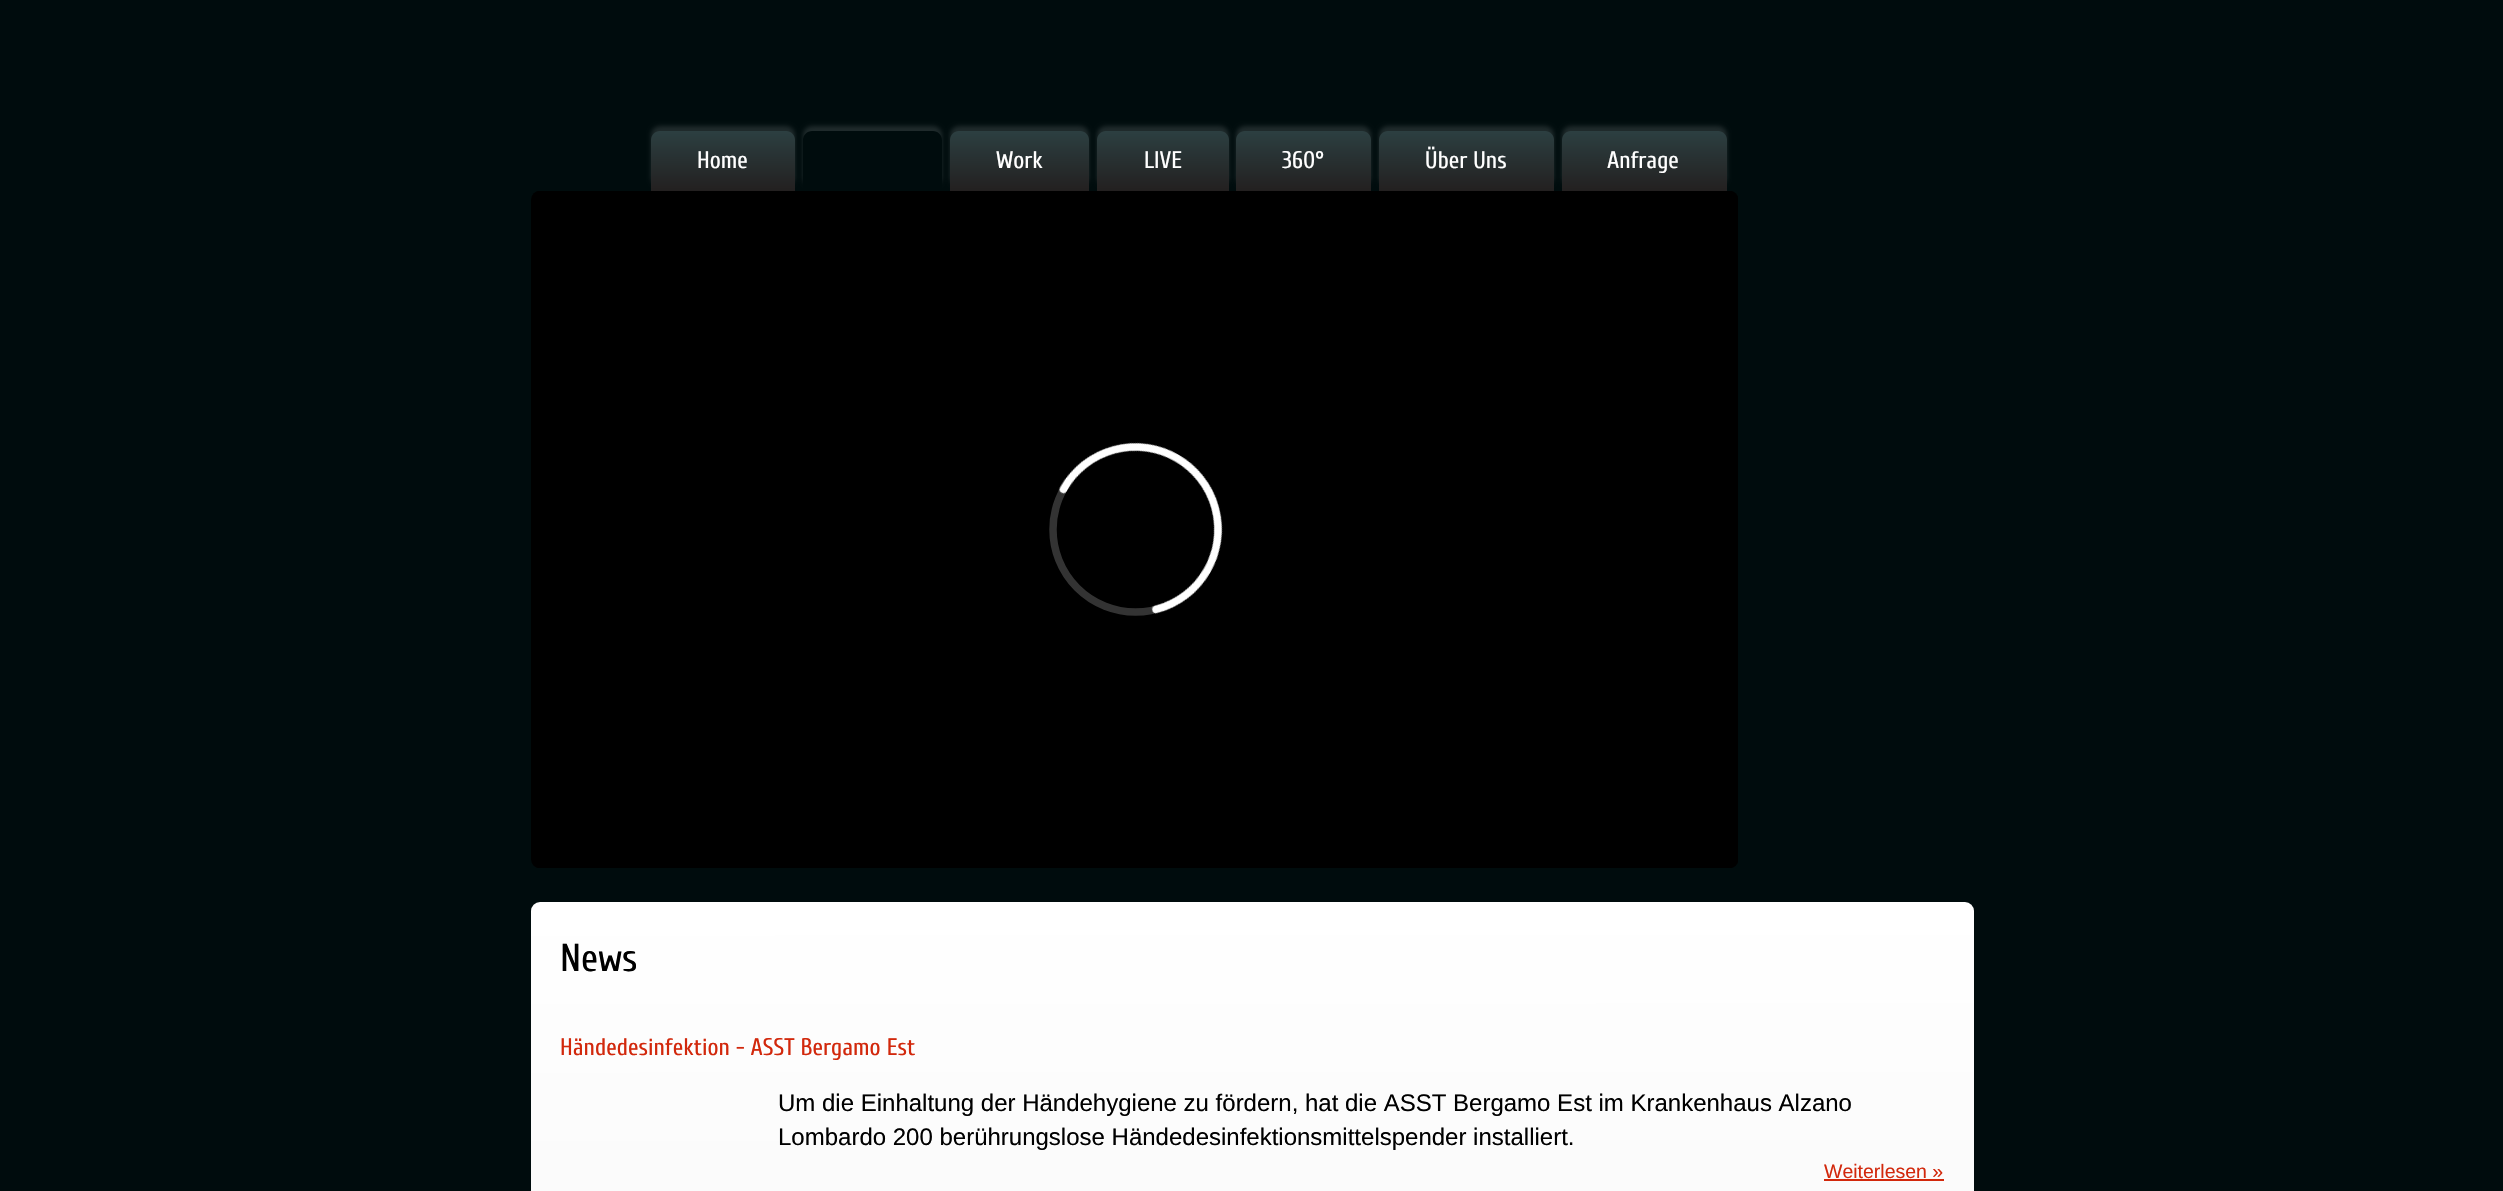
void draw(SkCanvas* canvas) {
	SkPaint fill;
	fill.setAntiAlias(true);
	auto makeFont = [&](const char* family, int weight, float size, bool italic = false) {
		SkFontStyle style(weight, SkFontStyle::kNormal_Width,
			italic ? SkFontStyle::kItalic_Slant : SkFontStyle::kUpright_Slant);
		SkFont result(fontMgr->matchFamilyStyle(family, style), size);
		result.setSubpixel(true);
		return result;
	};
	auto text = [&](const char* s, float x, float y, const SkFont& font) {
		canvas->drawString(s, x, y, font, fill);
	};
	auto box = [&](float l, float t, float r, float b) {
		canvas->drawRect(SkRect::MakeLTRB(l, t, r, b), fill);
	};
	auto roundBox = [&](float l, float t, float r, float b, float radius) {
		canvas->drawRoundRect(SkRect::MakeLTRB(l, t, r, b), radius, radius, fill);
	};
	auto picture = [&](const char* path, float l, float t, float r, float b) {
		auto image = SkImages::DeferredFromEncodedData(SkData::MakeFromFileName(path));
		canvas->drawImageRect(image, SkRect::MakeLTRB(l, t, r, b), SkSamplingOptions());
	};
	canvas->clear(0xFF000C0D);
	picture("image0.png", 531, 191, 1738, 868);
	fill.setColor(0xFF1F2A2B);
	fill.setMaskFilter(SkMaskFilter::MakeBlur(kNormal_SkBlurStyle, 2));
	canvas->drawRoundRect(SkRect::MakeLTRB(651, 126, 795, 186), 9, 9, fill);
	fill.setMaskFilter(nullptr);
	{
		const SkColor colors[] = {0xFF2C3F41, 0xFF232020};
		const float stops[] = {0, 1};
		const SkPoint ends[] = {{723, 131}, {723, 191}};
		fill.setShader(SkGradientShader::MakeLinear(ends, colors, stops, 2, SkTileMode::kClamp));
		fill.setAlpha(255);
	}
	canvas->drawPath(SkPathBuilder().moveTo(660, 131).lineTo(786, 131).cubicTo(791, 131, 795, 135, 795, 140).lineTo(795, 191).lineTo(651, 191).lineTo(651, 140).cubicTo(651, 135, 655, 131, 660, 131).close().detach(), fill);
	canvas->save();
	canvas->clipPath(SkPathBuilder(SkPathFillType::kEvenOdd).moveTo(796, 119).lineTo(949, 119).lineTo(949, 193).lineTo(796, 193).close().moveTo(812, 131).lineTo(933, 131).cubicTo(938, 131, 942, 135, 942, 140).lineTo(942, 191).lineTo(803, 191).lineTo(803, 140).cubicTo(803, 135, 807, 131, 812, 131).close().detach(), true);
	fill.setShader(nullptr);
	fill.setColor(0xFF1F2A2B);
	fill.setMaskFilter(SkMaskFilter::MakeBlur(kNormal_SkBlurStyle, 2));
	canvas->drawRoundRect(SkRect::MakeLTRB(803, 126, 942, 186), 9, 9, fill);
	fill.setMaskFilter(nullptr);
	canvas->restore();
	fill.setMaskFilter(SkMaskFilter::MakeBlur(kNormal_SkBlurStyle, 2));
	canvas->drawRoundRect(SkRect::MakeLTRB(950, 126, 1089, 186), 9, 9, fill);
	fill.setMaskFilter(nullptr);
	{
		const SkColor colors[] = {0xFF2C3F41, 0xFF232020};
		const float stops[] = {0, 1};
		const SkPoint ends[] = {{1019, 131}, {1019, 191}};
		fill.setShader(SkGradientShader::MakeLinear(ends, colors, stops, 2, SkTileMode::kClamp));
		fill.setAlpha(255);
	}
	canvas->drawPath(SkPathBuilder().moveTo(959, 131).lineTo(1080, 131).cubicTo(1085, 131, 1089, 135, 1089, 140).lineTo(1089, 191).lineTo(950, 191).lineTo(950, 140).cubicTo(950, 135, 954, 131, 959, 131).close().detach(), fill);
	fill.setShader(nullptr);
	fill.setColor(0xFF1F2A2B);
	fill.setMaskFilter(SkMaskFilter::MakeBlur(kNormal_SkBlurStyle, 2));
	canvas->drawRoundRect(SkRect::MakeLTRB(1097, 126, 1229, 186), 9, 9, fill);
	fill.setMaskFilter(nullptr);
	{
		const SkColor colors[] = {0xFF2C3F41, 0xFF232020};
		const float stops[] = {0, 1};
		const SkPoint ends[] = {{1163, 131}, {1163, 191}};
		fill.setShader(SkGradientShader::MakeLinear(ends, colors, stops, 2, SkTileMode::kClamp));
		fill.setAlpha(255);
	}
	canvas->drawPath(SkPathBuilder().moveTo(1106, 131).lineTo(1220, 131).cubicTo(1225, 131, 1229, 135, 1229, 140).lineTo(1229, 191).lineTo(1097, 191).lineTo(1097, 140).cubicTo(1097, 135, 1101, 131, 1106, 131).close().detach(), fill);
	fill.setShader(nullptr);
	fill.setColor(0xFF1F2A2B);
	fill.setMaskFilter(SkMaskFilter::MakeBlur(kNormal_SkBlurStyle, 2));
	canvas->drawRoundRect(SkRect::MakeLTRB(1236, 126, 1371, 186), 9, 9, fill);
	fill.setMaskFilter(nullptr);
	{
		const SkColor colors[] = {0xFF2C3F41, 0xFF232020};
		const float stops[] = {0, 1};
		const SkPoint ends[] = {{1304, 131}, {1304, 191}};
		fill.setShader(SkGradientShader::MakeLinear(ends, colors, stops, 2, SkTileMode::kClamp));
		fill.setAlpha(255);
	}
	canvas->drawPath(SkPathBuilder().moveTo(1245, 131).lineTo(1362, 131).cubicTo(1367, 131, 1371, 135, 1371, 140).lineTo(1371, 191).lineTo(1236, 191).lineTo(1236, 140).cubicTo(1236, 135, 1240, 131, 1245, 131).close().detach(), fill);
	fill.setShader(nullptr);
	fill.setColor(0xFF1F2A2B);
	fill.setMaskFilter(SkMaskFilter::MakeBlur(kNormal_SkBlurStyle, 2));
	canvas->drawRoundRect(SkRect::MakeLTRB(1379, 126, 1554, 186), 9, 9, fill);
	fill.setMaskFilter(nullptr);
	{
		const SkColor colors[] = {0xFF2C3F41, 0xFF232020};
		const float stops[] = {0, 1};
		const SkPoint ends[] = {{1466, 131}, {1466, 191}};
		fill.setShader(SkGradientShader::MakeLinear(ends, colors, stops, 2, SkTileMode::kClamp));
		fill.setAlpha(255);
	}
	canvas->drawPath(SkPathBuilder().moveTo(1388, 131).lineTo(1545, 131).cubicTo(1550, 131, 1554, 135, 1554, 140).lineTo(1554, 191).lineTo(1379, 191).lineTo(1379, 140).cubicTo(1379, 135, 1383, 131, 1388, 131).close().detach(), fill);
	fill.setShader(nullptr);
	fill.setColor(0xFF1F2A2B);
	fill.setMaskFilter(SkMaskFilter::MakeBlur(kNormal_SkBlurStyle, 2));
	canvas->drawRoundRect(SkRect::MakeLTRB(1562, 126, 1727, 186), 9, 9, fill);
	fill.setMaskFilter(nullptr);
	{
		const SkColor colors[] = {0xFF2C3F41, 0xFF232020};
		const float stops[] = {0, 1};
		const SkPoint ends[] = {{1644, 131}, {1644, 191}};
		fill.setShader(SkGradientShader::MakeLinear(ends, colors, stops, 2, SkTileMode::kClamp));
		fill.setAlpha(255);
	}
	canvas->drawPath(SkPathBuilder().moveTo(1571, 131).lineTo(1718, 131).cubicTo(1723, 131, 1727, 135, 1727, 140).lineTo(1727, 191).lineTo(1562, 191).lineTo(1562, 140).cubicTo(1562, 135, 1566, 131, 1571, 131).close().detach(), fill);
	{
		const SkColor colors[] = {0xFFFFFFFF, 0xFFE5E5E5};
		const float stops[] = {0, 1};
		const SkPoint ends[] = {{1252, 901}, {1253, 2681}};
		fill.setShader(SkGradientShader::MakeLinear(ends, colors, stops, 2, SkTileMode::kClamp));
		fill.setAlpha(255);
	}
	roundBox(531, 902, 1974, 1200, 9);
	fill.setShader(nullptr);
	fill.setColor(0xFFD2280C);
	box(1824, 1179, 1944, 1181);
	auto font1 = makeFont("Cuprum", 400, 24);
	fill.setColor(0xFFFFFFFF);
	text("Home", 697, 168, font1);
	text("Work", 996, 168, font1);
	text("LIVE", 1144, 168, font1);
	text("360°", 1282, 168, font1);
	text("Über Uns", 1425, 168, font1);
	text("Anfrage", 1607, 168, font1);
	auto font2 = makeFont("Cuprum", 400, 39);
	fill.setColor(0xFF000000);
	text("News", 560, 971, font2);
	fill.setColor(0xFFD2280C);
	text("Händedesinfektion - ASST Bergamo Est", 560, 1055, font1);
	auto font3 = makeFont("Liberation Sans", 400, 24);
	fill.setColor(0xFF000000);
	text("Um die Einhaltung der Händehygiene zu fördern, hat die ASST Bergamo Est im Krankenhaus Alzano", 778, 1111, font3);
	text("Lombardo 200 berührungslose Händedesinfektionsmittelspender installiert.", 778, 1145, font3);
	auto font4 = makeFont("Liberation Sans", 400, 19.5f);
	fill.setColor(0xFFD2280C);
	text("Weiterlesen »", 1824, 1178, font4);
}
